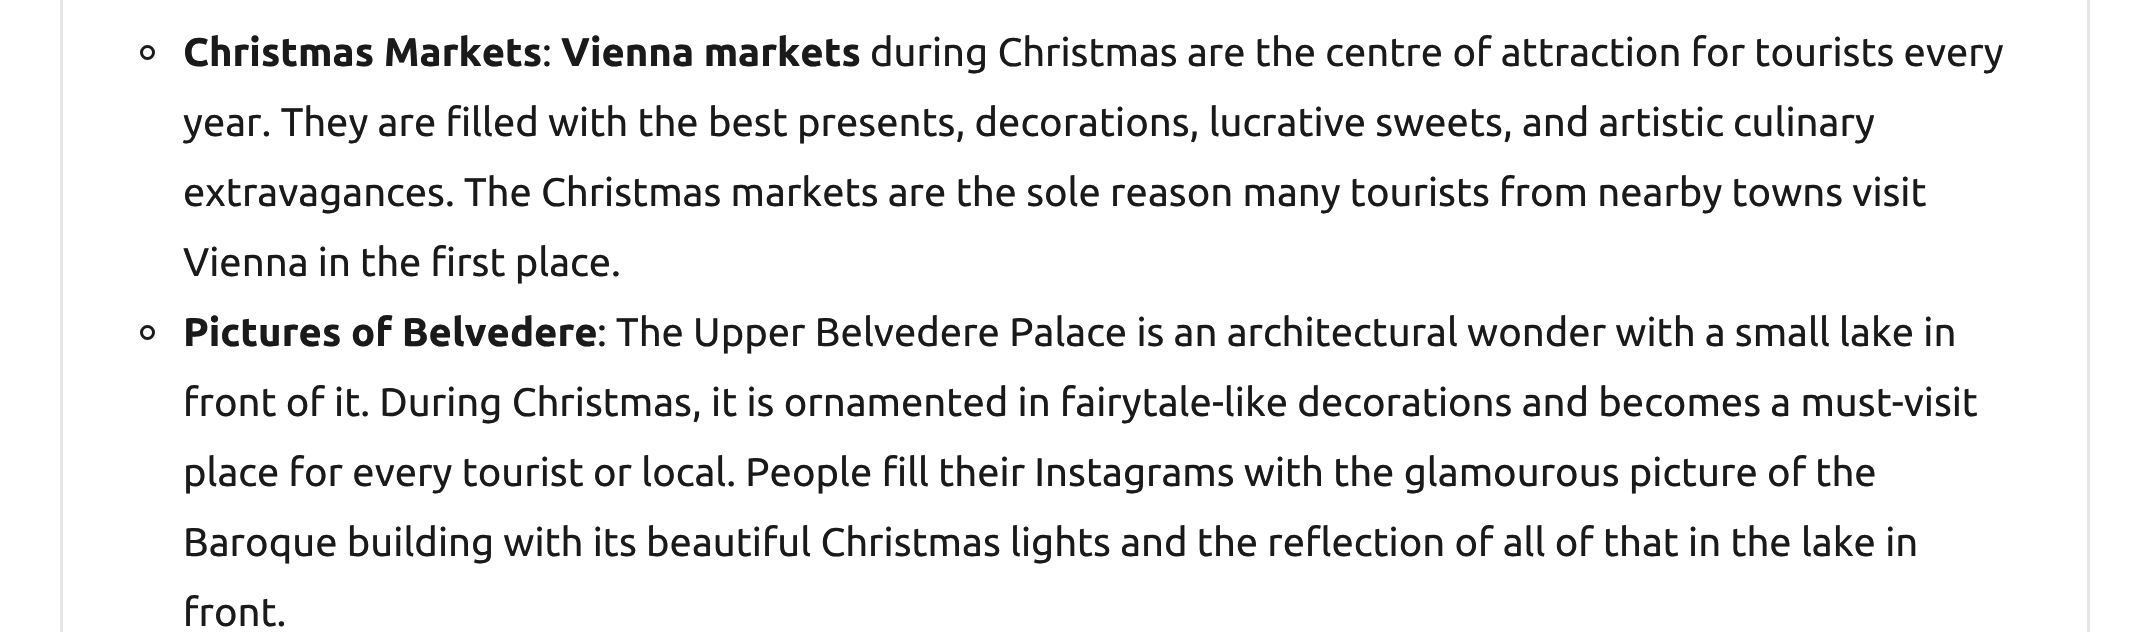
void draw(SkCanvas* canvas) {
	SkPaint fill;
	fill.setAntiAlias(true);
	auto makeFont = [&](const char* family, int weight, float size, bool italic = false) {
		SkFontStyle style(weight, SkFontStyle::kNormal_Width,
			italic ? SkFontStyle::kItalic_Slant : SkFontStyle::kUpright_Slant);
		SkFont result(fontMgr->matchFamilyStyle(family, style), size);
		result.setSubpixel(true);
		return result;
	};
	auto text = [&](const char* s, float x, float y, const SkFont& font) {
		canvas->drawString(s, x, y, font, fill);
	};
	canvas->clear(0xFFFFFFFF);
	fill.setStyle(SkPaint::kStroke_Style);
	fill.setStrokeWidth(3);
	fill.setColor(0xFFE6E6E6);
	canvas->drawRect(SkRect::MakeLTRB(61.5f, -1.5f, 2088.5f, 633.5f), fill);
	fill.setColor(0xFF1A1A1A);
	canvas->drawCircle(147.5f, 52.5f, 6, fill);
	canvas->drawCircle(147.5f, 332.5f, 6, fill);
	auto font1 = makeFont("Ubuntu", 700, 40);
	fill.setStyle(SkPaint::kFill_Style);
	text("Christmas Markets", 183, 66, font1);
	auto font2 = makeFont("Ubuntu", 400, 40);
	text(":", 542, 66, font2);
	text("Vienna markets", 561, 66, font1);
	text("during Christmas are the centre of attraction for tourists every", 870, 66, font2);
	text("year. They are filled with the best presents, decorations, lucrative sweets, and artistic culinary", 183, 136, font2);
	text("extravagances. The Christmas markets are the sole reason many tourists from nearby towns visit", 183, 206, font2);
	text("Vienna in the first place.", 183, 276, font2);
	text("Pictures of Belvedere", 183, 346, font1);
	text(": The Upper Belvedere Palace is an architectural wonder with a small lake in", 597, 346, font2);
	text("front of it. During Christmas, it is ornamented in fairytale-like decorations and becomes a must-visit", 183, 416, font2);
	text("place for every tourist or local. People fill their Instagrams with the glamourous picture of the", 183, 486, font2);
	text("Baroque building with its beautiful Christmas lights and the reflection of all of that in the lake in", 183, 556, font2);
	text("front.", 183, 626, font2);
}
